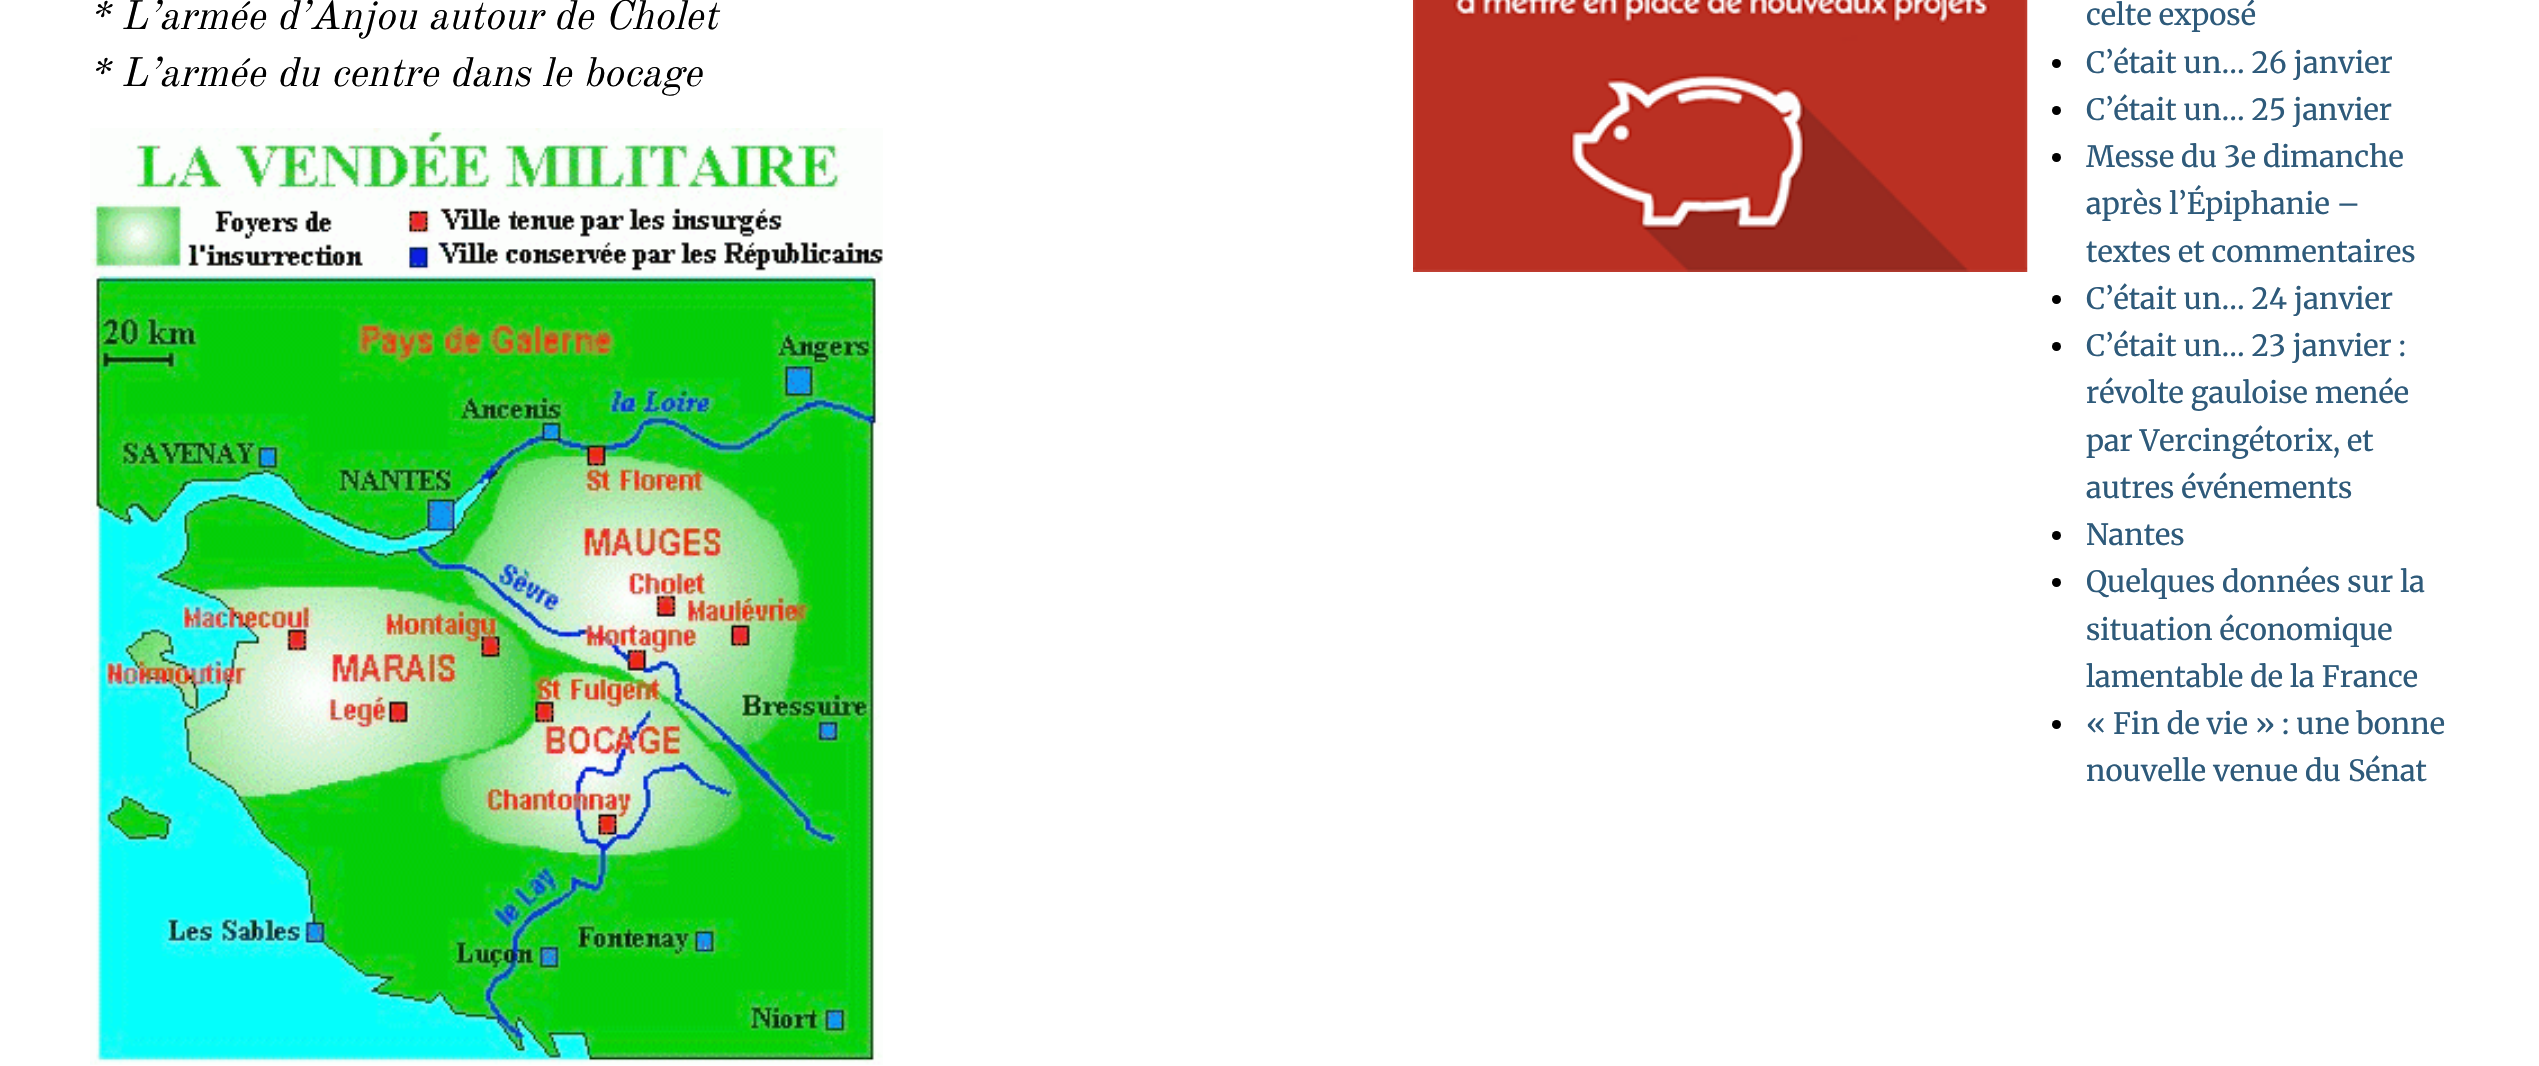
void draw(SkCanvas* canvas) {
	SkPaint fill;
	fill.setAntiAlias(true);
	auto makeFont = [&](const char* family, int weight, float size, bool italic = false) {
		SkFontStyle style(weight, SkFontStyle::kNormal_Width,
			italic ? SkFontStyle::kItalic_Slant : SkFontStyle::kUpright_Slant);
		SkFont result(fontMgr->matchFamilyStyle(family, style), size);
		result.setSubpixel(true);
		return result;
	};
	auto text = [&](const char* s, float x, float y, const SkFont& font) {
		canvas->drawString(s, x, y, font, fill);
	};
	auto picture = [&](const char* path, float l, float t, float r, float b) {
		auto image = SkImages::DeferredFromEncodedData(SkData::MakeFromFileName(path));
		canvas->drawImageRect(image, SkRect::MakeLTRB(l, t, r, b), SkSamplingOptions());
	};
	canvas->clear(0xFFFFFFFF);
	picture("image0.png", 90, 128, 883, 1065);
	picture("image1.png", 1413, 0, 2028, 272);
	fill.setColor(0xFF000000);
	canvas->drawCircle(2056.5f, 63.5f, 4.5f, fill);
	canvas->drawCircle(2056.5f, 110.5f, 4.5f, fill);
	canvas->drawCircle(2056.5f, 157.5f, 4.5f, fill);
	canvas->drawCircle(2056.5f, 299.5f, 4.5f, fill);
	canvas->drawCircle(2056.5f, 346.5f, 4.5f, fill);
	canvas->drawCircle(2056.5f, 535.5f, 4.5f, fill);
	canvas->drawCircle(2056.5f, 582.5f, 4.5f, fill);
	canvas->drawCircle(2056.5f, 724.5f, 4.5f, fill);
	auto font1 = makeFont("Old Standard TT", 400, 40.5f, true);
	text("* L’armée d’Anjou autour de Cholet", 89, 29, font1);
	text("* L’armée du centre dans le bocage", 89, 86, font1);
	auto font2 = makeFont("Merriweather", 400, 29.25f);
	fill.setColor(0xFF2E5A7A);
	text("celte exposé", 2086, 25, font2);
	text("C’était un… 26 janvier", 2086, 73, font2);
	text("C’était un… 25 janvier", 2086, 120, font2);
	text("Messe du 3e dimanche", 2086, 167, font2);
	text("après l’Épiphanie –", 2086, 214, font2);
	text("textes et commentaires", 2086, 262, font2);
	text("C’était un… 24 janvier", 2086, 309, font2);
	text("C’était un… 23 janvier :", 2086, 356, font2);
	text("révolte gauloise menée", 2086, 403, font2);
	text("par Vercingétorix, et", 2086, 451, font2);
	text("autres événements", 2086, 498, font2);
	text("Nantes", 2086, 545, font2);
	text("Quelques données sur la", 2086, 592, font2);
	text("situation économique", 2086, 640, font2);
	text("lamentable de la France", 2086, 687, font2);
	text("« Fin de vie » : une bonne", 2086, 734, font2);
	text("nouvelle venue du Sénat", 2086, 781, font2);
}
